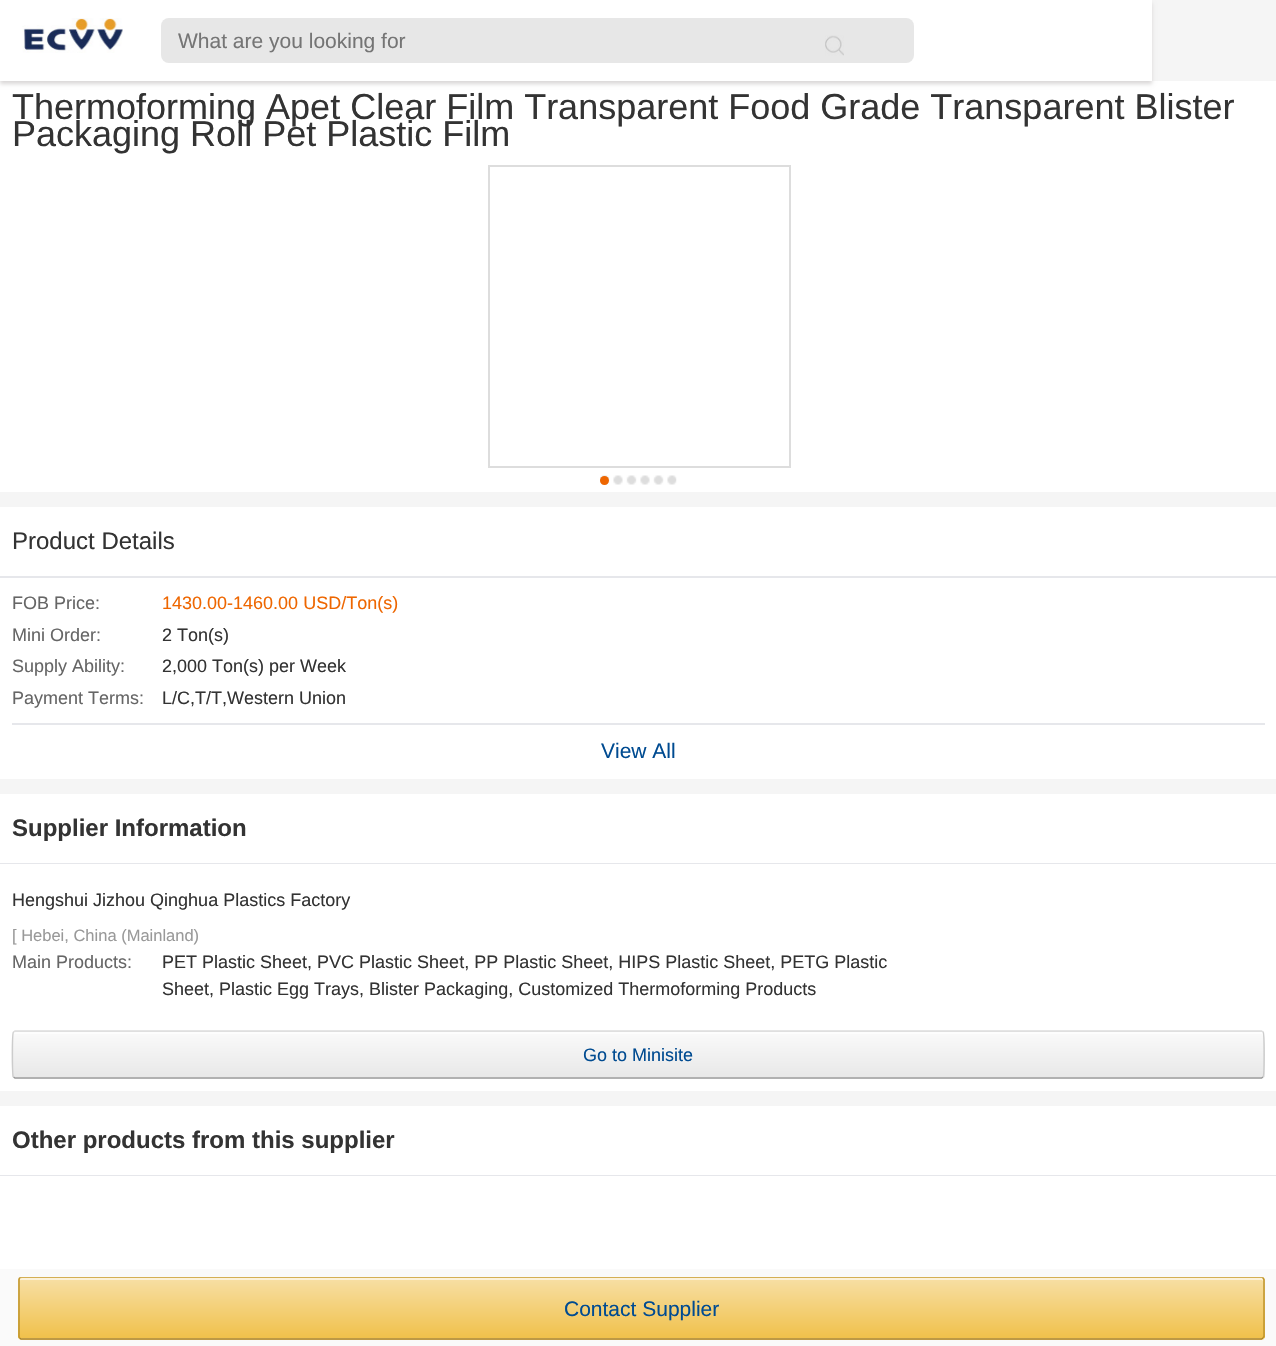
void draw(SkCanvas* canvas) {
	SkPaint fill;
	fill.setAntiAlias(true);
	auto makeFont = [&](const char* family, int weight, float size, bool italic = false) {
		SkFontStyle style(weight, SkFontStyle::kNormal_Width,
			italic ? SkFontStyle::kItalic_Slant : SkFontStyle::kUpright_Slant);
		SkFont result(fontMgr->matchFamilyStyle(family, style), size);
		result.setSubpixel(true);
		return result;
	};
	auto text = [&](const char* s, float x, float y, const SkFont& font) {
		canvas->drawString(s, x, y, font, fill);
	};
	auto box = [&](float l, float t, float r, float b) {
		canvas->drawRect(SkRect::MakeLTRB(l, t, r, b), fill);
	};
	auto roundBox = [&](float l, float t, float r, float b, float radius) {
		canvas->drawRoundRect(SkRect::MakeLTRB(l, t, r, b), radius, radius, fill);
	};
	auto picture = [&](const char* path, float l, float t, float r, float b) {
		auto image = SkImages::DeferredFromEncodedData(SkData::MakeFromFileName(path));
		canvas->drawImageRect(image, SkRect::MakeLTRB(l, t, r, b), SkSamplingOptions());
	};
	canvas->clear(0xFFF5F5F5);
	fill.setColor(0xFFFFFFFF);
	box(0, 81, 1276, 492);
	fill.setColor(0xFFD9D7D7);
	fill.setMaskFilter(SkMaskFilter::MakeBlur(kNormal_SkBlurStyle, 2));
	canvas->drawRect(SkRect::MakeLTRB(0, 3, 1152, 84), fill);
	fill.setMaskFilter(nullptr);
	fill.setColor(0xFFFFFFFF);
	box(0, 0, 1152, 81);
	picture("image0.png", 22, 18, 123, 53);
	fill.setColor(0xFFE7E7E7);
	roundBox(161, 18, 914, 63, 8);
	picture("image1.png", 825, 35, 844, 56);
	fill.setStyle(SkPaint::kStroke_Style);
	fill.setStrokeWidth(2);
	fill.setColor(0xFFDDDDDD);
	canvas->drawRect(SkRect::MakeLTRB(489, 166, 790, 467), fill);
	picture("image2.png", 600, 475, 677, 485);
	fill.setStyle(SkPaint::kFill_Style);
	fill.setColor(0xFFEE6600);
	canvas->drawCircle(604.5f, 480.5f, 4.5f, fill);
	fill.setColor(0xFFFFFFFF);
	box(0, 507, 1276, 576);
	fill.setColor(0xFFE6E7EB);
	box(0, 576, 1276, 578);
	fill.setColor(0xFFFFFFFF);
	box(0, 578, 1276, 779);
	fill.setColor(0xFFE6E7EB);
	box(12, 723, 1265, 725);
	fill.setColor(0xFFFFFFFF);
	box(0, 794, 1276, 863);
	fill.setColor(0xFFE6E7EB);
	box(0, 863, 1276, 864);
	fill.setColor(0xFFFFFFFF);
	box(0, 864, 1276, 1091);
	canvas->save();
	canvas->clipPath(SkPathBuilder().moveTo(15, 1031).lineTo(1262, 1031).cubicTo(1263.5f, 1031, 1265, 1032.5f, 1265, 1034).lineTo(1265, 1076).cubicTo(1265, 1077.5f, 1263.5f, 1079, 1262, 1079).lineTo(15, 1079).cubicTo(13.5f, 1079, 12, 1077.5f, 12, 1076).lineTo(12, 1034).cubicTo(12, 1032.5f, 13.5f, 1031, 15, 1031).close().detach(), true);
	{
		const SkColor colors[] = {0xFFFAFAFA, 0xFFE8E8E8};
		const float stops[] = {0, 1};
		const SkPoint ends[] = {{638, 987}, {638, 1032}};
		fill.setShader(SkGradientShader::MakeLinear(ends, colors, stops, 2, SkTileMode::kClamp));
		fill.setAlpha(255);
	}
	box(12, 1031, 1265, 1032);
	{
		const SkColor colors[] = {0xFFFAFAFA, 0xFFE8E8E8};
		const float stops[] = {0, 1};
		const SkPoint ends[] = {{638, 1032}, {638, 1077}};
		fill.setShader(SkGradientShader::MakeLinear(ends, colors, stops, 2, SkTileMode::kClamp));
		fill.setAlpha(255);
	}
	box(12, 1032, 1265, 1077);
	{
		const SkColor colors[] = {0xFFFAFAFA, 0xFFE8E8E8};
		const float stops[] = {0, 1};
		const SkPoint ends[] = {{638, 1077}, {638, 1122}};
		fill.setShader(SkGradientShader::MakeLinear(ends, colors, stops, 2, SkTileMode::kClamp));
		fill.setAlpha(255);
	}
	box(12, 1077, 1265, 1079);
	canvas->restore();
	fill.setShader(nullptr);
	fill.setColor(0xFFFDFDFD);
	canvas->drawPath(SkPathBuilder().moveTo(15, 1034).lineTo(1262, 1034).lineTo(1263, 1035).lineTo(1263, 1033).lineTo(1262, 1032).lineTo(638, 1032).lineTo(16, 1032).lineTo(14, 1033).lineTo(14, 1035).cubicTo(14, 1034, 14, 1034, 15, 1034).close().detach(), fill);
	fill.setStyle(SkPaint::kStroke_Style);
	fill.setStrokeWidth(1.5f);
	fill.setColor(0xFFDDDDDD);
	canvas->drawPath(SkPathBuilder().moveTo(13.5f, 1032).lineTo(15, 1031).lineTo(1261.5f, 1031).lineTo(1263, 1032).detach(), fill);
	fill.setColor(0xFFCCCCCC);
	canvas->drawPath(SkPathBuilder().moveTo(1263, 1032).cubicTo(1264.5f, 1033, 1264.5f, 1076, 1263, 1077).detach(), fill);
	fill.setColor(0xFF999999);
	canvas->drawPath(SkPathBuilder().moveTo(1263, 1077).lineTo(1261.5f, 1078).lineTo(15, 1078).lineTo(13.5f, 1077).detach(), fill);
	fill.setColor(0xFFCCCCCC);
	canvas->drawPath(SkPathBuilder().moveTo(13.5f, 1077).cubicTo(12, 1076, 12, 1033, 13.5f, 1032).detach(), fill);
	fill.setStyle(SkPaint::kFill_Style);
	fill.setColor(0xFFFFFFFF);
	box(0, 1106, 1276, 1175);
	fill.setColor(0xFFE6E7EB);
	box(0, 1175, 1276, 1176);
	fill.setColor(0xFFFFFFFF);
	box(0, 1176, 1276, 1269);
	fill.setColor(0xFFFAFAFA);
	box(0, 1269, 1276, 1346);
	canvas->save();
	canvas->clipPath(SkPathBuilder().moveTo(21, 1277).lineTo(1262, 1277).cubicTo(1263.5f, 1277, 1265, 1278.5f, 1265, 1280).lineTo(1265, 1337).cubicTo(1265, 1338.5f, 1263.5f, 1340, 1262, 1340).lineTo(21, 1340).cubicTo(19.5f, 1340, 18, 1338.5f, 18, 1337).lineTo(18, 1280).cubicTo(18, 1278.5f, 19.5f, 1277, 21, 1277).close().detach(), true);
	{
		const SkColor colors[] = {0xFFF7DFA5, 0xFFF0C14B};
		const float stops[] = {0, 1};
		const SkPoint ends[] = {{641, 1218}, {641, 1278}};
		fill.setShader(SkGradientShader::MakeLinear(ends, colors, stops, 2, SkTileMode::kClamp));
		fill.setAlpha(255);
	}
	box(18, 1277, 1265, 1278);
	{
		const SkColor colors[] = {0xFFF7DFA5, 0xFFF0C14B};
		const float stops[] = {0, 1};
		const SkPoint ends[] = {{641, 1278}, {641, 1338}};
		fill.setShader(SkGradientShader::MakeLinear(ends, colors, stops, 2, SkTileMode::kClamp));
		fill.setAlpha(255);
	}
	box(18, 1278, 1265, 1338);
	{
		const SkColor colors[] = {0xFFF7DFA5, 0xFFF0C14B};
		const float stops[] = {0, 1};
		const SkPoint ends[] = {{641, 1338}, {641, 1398}};
		fill.setShader(SkGradientShader::MakeLinear(ends, colors, stops, 2, SkTileMode::kClamp));
		fill.setAlpha(255);
	}
	box(18, 1338, 1265, 1340);
	canvas->restore();
	fill.setShader(nullptr);
	fill.setColor(0x99FFFFFF);
	canvas->drawPath(SkPathBuilder().moveTo(21, 1280).lineTo(1262, 1280).lineTo(1263, 1281).lineTo(1263, 1279).lineTo(1262, 1278).lineTo(22, 1278).lineTo(20, 1279).lineTo(20, 1281).cubicTo(20, 1280, 20, 1280, 21, 1280).close().detach(), fill);
	canvas->save();
	canvas->clipRect(SkRect::MakeLTRB(12, 1277, 1265, 1340));
	fill.setStyle(SkPaint::kStroke_Style);
	fill.setColor(0xFFCBA957);
	canvas->drawPath(SkPathBuilder().moveTo(19.5f, 1278).lineTo(21, 1277).lineTo(1261.5f, 1277).lineTo(1263, 1278).detach(), fill);
	canvas->restore();
	fill.setColor(0xFFBF942A);
	canvas->drawPath(SkPathBuilder().moveTo(1263, 1278).lineTo(1264, 1279.5f).lineTo(1264, 1336.5f).lineTo(1263, 1338).detach(), fill);
	fill.setColor(0xFFAA8326);
	canvas->drawPath(SkPathBuilder().moveTo(1263, 1338).lineTo(1261.5f, 1339).lineTo(21, 1339).lineTo(19.5f, 1338).detach(), fill);
	fill.setColor(0xFFBF942A);
	canvas->drawPath(SkPathBuilder().moveTo(19.5f, 1338).lineTo(19, 1336.5f).lineTo(19, 1279.5f).lineTo(19.5f, 1278).detach(), fill);
	auto font1 = makeFont("Liberation Sans", 400, 21);
	fill.setStyle(SkPaint::kFill_Style);
	fill.setColor(0xFF757575);
	text("What are you looking for", 178, 48, font1);
	auto font2 = makeFont("Liberation Sans", 400, 36);
	fill.setColor(0xFF333333);
	text("Thermoforming Apet Clear Film Transparent Food Grade Transparent Blister", 12, 119, font2);
	text("Packaging Roll Pet Plastic Film", 12, 146, font2);
	auto font3 = makeFont("Liberation Sans", 400, 24);
	text("Product Details", 12, 549, font3);
	auto font4 = makeFont("Liberation Sans", 400, 18);
	fill.setColor(0xFF666666);
	text("FOB Price:", 12, 609, font4);
	fill.setColor(0xFFEE6600);
	text("1430.00-1460.00 USD/Ton(s)", 162, 609, font4);
	fill.setColor(0xFF666666);
	text("Mini Order:", 12, 641, font4);
	fill.setColor(0xFF333333);
	text("2 Ton(s)", 162, 641, font4);
	fill.setColor(0xFF666666);
	text("Supply Ability:", 12, 672, font4);
	fill.setColor(0xFF333333);
	text("2,000 Ton(s) per Week", 162, 672, font4);
	fill.setColor(0xFF666666);
	text("Payment Terms:", 12, 704, font4);
	fill.setColor(0xFF333333);
	text("L/C,T/T,Western Union", 162, 704, font4);
	fill.setColor(0xFF004B91);
	text("View All", 601, 758, font1);
	auto font5 = makeFont("Liberation Sans", 700, 24);
	fill.setColor(0xFF333333);
	text("Supplier Information", 12, 836, font5);
	text("Hengshui Jizhou Qinghua Plastics Factory", 12, 906, font4);
	auto font6 = makeFont("Liberation Sans", 400, 16.5f);
	fill.setColor(0xFF999999);
	text("[ Hebei, China (Mainland)", 12, 941, font6);
	fill.setColor(0xFF666666);
	text("Main Products:", 12, 968, font4);
	fill.setColor(0xFF333333);
	text("PET Plastic Sheet, PVC Plastic Sheet, PP Plastic Sheet, HIPS Plastic Sheet, PETG Plastic", 162, 968, font4);
	text("Sheet, Plastic Egg Trays, Blister Packaging, Customized Thermoforming Products", 162, 995, font4);
	fill.setColor(0xFF004B91);
	text("Go to Minisite", 583, 1061, font4);
	fill.setColor(0xFF333333);
	text("Other products from this supplier", 12, 1148, font5);
	fill.setColor(0xFF004B91);
	text("Contact Supplier", 564, 1316, font1);
}
